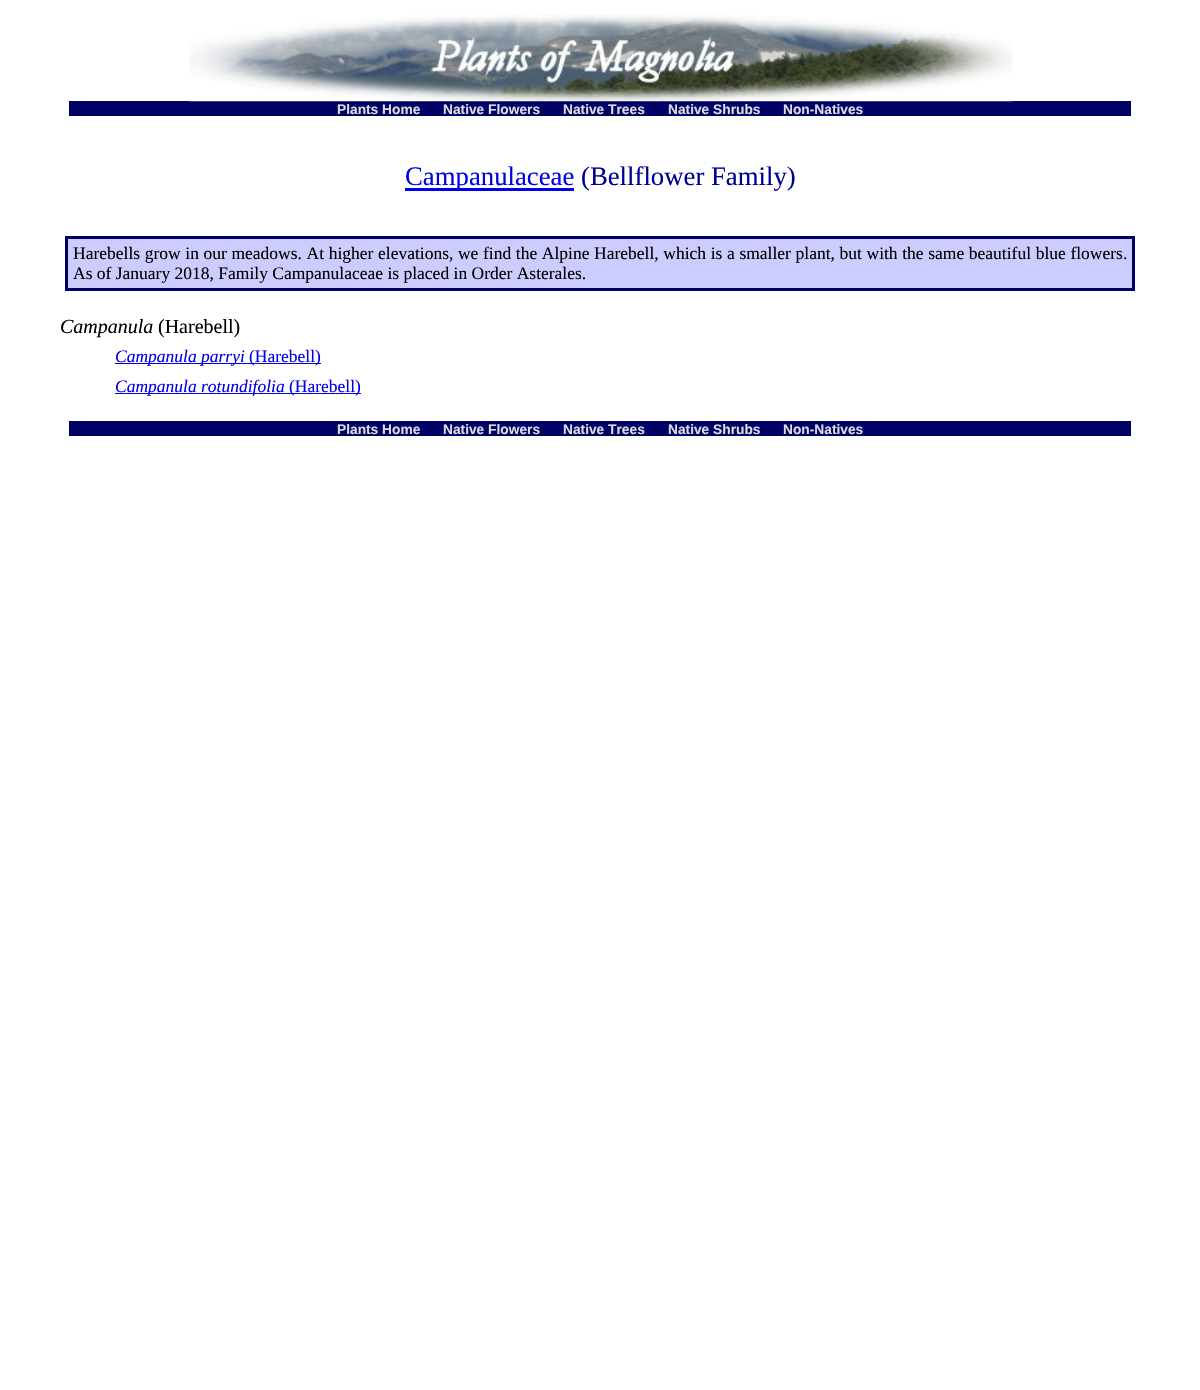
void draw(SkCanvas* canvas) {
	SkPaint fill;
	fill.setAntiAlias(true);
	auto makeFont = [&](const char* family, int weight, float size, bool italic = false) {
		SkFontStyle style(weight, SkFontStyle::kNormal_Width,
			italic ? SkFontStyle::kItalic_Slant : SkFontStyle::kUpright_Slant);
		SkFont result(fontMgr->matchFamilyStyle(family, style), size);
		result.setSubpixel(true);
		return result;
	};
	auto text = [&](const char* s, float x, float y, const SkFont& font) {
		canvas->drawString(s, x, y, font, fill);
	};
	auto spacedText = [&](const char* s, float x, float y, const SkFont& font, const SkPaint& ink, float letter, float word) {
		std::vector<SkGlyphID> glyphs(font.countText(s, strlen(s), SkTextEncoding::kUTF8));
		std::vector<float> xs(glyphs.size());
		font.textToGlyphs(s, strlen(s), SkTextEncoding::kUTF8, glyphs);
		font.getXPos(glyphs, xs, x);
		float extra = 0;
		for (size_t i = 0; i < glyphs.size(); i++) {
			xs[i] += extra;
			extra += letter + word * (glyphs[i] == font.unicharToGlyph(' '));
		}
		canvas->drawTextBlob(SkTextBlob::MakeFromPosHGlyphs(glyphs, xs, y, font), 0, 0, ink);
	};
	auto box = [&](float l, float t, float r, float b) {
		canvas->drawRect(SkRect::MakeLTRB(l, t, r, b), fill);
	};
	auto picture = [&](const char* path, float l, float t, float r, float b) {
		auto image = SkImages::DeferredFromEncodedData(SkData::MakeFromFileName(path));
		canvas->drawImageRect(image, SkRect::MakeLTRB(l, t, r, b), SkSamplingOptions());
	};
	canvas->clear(0xFFFFFFFF);
	fill.setColor(0xFF000066);
	box(69, 101, 1131, 116);
	picture("image0.png", 188, 14, 1013, 102);
	fill.setColor(0xFF0000EE);
	box(405, 188, 574, 191);
	fill.setColor(0xFFCCCCFF);
	canvas->drawRect(SkRect::MakeLTRB(66.5f, 237.5f, 1133.5f, 289.5f), fill);
	fill.setStyle(SkPaint::kStroke_Style);
	fill.setStrokeWidth(3);
	fill.setColor(0xFF000066);
	canvas->drawRect(SkRect::MakeLTRB(66.5f, 237.5f, 1133.5f, 289.5f), fill);
	fill.setStyle(SkPaint::kFill_Style);
	fill.setColor(0xFF0000EE);
	box(115, 363, 321, 364);
	box(115, 393, 361, 394);
	fill.setColor(0xFF000066);
	box(69, 421, 1131, 436);
	auto font1 = makeFont("Liberation Sans", 700, 13.75f);
	fill.setColor(0xFFDDDDDE);
	text("Plants Home", 337, 114, font1);
	text("Native Flowers", 443, 114, font1);
	text("Native Trees", 563, 114, font1);
	text("Native Shrubs", 668, 114, font1);
	text("Non-Natives", 783, 114, font1);
	auto font2 = makeFont("Liberation Serif", 400, 26.75f);
	fill.setColor(0xFF0000EE);
	text("Campanulaceae", 405, 185, font2);
	fill.setColor(0xFF000099);
	text("(Bellflower Family)", 581, 185, font2);
	auto font3 = makeFont("Liberation Serif", 400, 17.5f);
	fill.setColor(0xFF000000);
	spacedText("Harebells grow in our meadows. At higher elevations, we find the Alpine Harebell, which is a smaller plant, but with the same beautiful blue flowers.", 73, 259, font3, fill, 0, 0.25f);
	text("As of January 2018, Family Campanulaceae is placed in Order Asterales.", 73, 279, font3);
	auto font4 = makeFont("Liberation Serif", 400, 20, true);
	text("Campanula", 60, 333, font4);
	auto font5 = makeFont("Liberation Serif", 400, 20);
	text("(Harebell)", 158, 333, font5);
	auto font6 = makeFont("Liberation Serif", 400, 17.5f, true);
	fill.setColor(0xFF0000EE);
	text("Campanula parryi", 115, 362, font6);
	text("(Harebell)", 249, 362, font3);
	text("Campanula rotundifolia", 115, 392, font6);
	text("(Harebell)", 289, 392, font3);
	fill.setColor(0xFFDDDDDE);
	text("Plants Home", 337, 434, font1);
	text("Native Flowers", 443, 434, font1);
	text("Native Trees", 563, 434, font1);
	text("Native Shrubs", 668, 434, font1);
	text("Non-Natives", 783, 434, font1);
}
